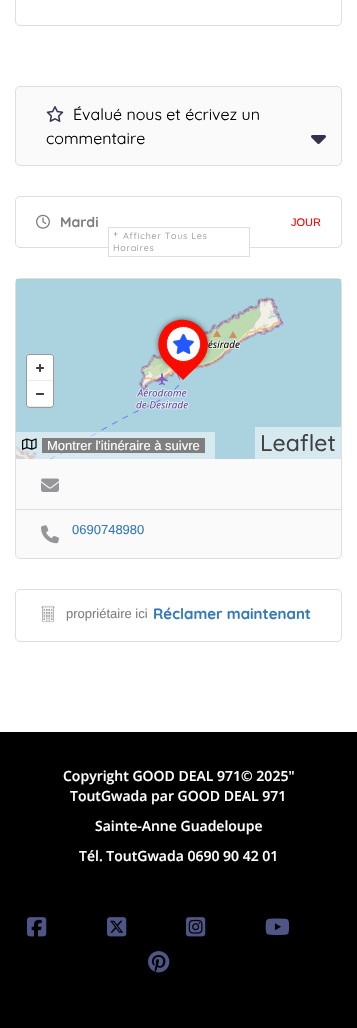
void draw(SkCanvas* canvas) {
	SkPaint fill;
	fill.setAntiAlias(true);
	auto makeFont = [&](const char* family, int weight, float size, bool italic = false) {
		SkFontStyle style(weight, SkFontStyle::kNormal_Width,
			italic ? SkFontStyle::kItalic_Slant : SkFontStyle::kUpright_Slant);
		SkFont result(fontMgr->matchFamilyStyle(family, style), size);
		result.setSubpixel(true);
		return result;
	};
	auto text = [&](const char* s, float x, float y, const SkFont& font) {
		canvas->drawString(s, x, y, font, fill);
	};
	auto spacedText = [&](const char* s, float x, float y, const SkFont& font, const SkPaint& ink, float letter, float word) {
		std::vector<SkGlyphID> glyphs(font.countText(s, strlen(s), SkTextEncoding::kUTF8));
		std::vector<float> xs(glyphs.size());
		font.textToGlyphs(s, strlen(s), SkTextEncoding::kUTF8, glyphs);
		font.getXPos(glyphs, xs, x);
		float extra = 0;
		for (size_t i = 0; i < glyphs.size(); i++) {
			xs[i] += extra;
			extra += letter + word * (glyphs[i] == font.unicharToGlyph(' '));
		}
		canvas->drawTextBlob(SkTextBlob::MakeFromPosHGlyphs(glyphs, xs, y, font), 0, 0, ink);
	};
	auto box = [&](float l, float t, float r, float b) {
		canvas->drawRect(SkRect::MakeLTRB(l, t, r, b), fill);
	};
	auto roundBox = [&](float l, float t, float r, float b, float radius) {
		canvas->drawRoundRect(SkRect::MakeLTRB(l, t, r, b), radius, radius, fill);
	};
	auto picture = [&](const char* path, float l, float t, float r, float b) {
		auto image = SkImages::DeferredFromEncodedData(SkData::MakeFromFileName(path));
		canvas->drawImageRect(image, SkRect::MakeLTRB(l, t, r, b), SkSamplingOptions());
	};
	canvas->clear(0xFF000000);
	fill.setColor(0xFFFFFFFF);
	box(0, 0, 357, 732);
	fill.setStyle(SkPaint::kStroke_Style);
	fill.setStrokeWidth(1);
	fill.setColor(0xFFDEDEDE);
	canvas->drawRoundRect(SkRect::MakeLTRB(15.5f, -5.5f, 341.5f, 25.5f), 4.5f, 4.5f, fill);
	fill.setStyle(SkPaint::kFill_Style);
	fill.setColor(0xFFFAFAFA);
	canvas->drawRoundRect(SkRect::MakeLTRB(15.5f, 86.5f, 341.5f, 165.5f), 4.5f, 4.5f, fill);
	fill.setStyle(SkPaint::kStroke_Style);
	fill.setColor(0xFFDEDEDE);
	canvas->drawRoundRect(SkRect::MakeLTRB(15.5f, 86.5f, 341.5f, 165.5f), 4.5f, 4.5f, fill);
	picture("image0.png", 46, 106, 64, 122);
	picture("image1.png", 311, 135, 326, 144);
	canvas->drawRoundRect(SkRect::MakeLTRB(15.5f, 196.5f, 341.5f, 247.5f), 4.5f, 4.5f, fill);
	picture("image2.png", 36, 214, 50, 229);
	fill.setStyle(SkPaint::kFill_Style);
	fill.setColor(0xFFFFFFFF);
	box(109, 247, 249, 248);
	fill.setStyle(SkPaint::kStroke_Style);
	fill.setColor(0xFFDEDEDE);
	canvas->drawRect(SkRect::MakeLTRB(108.5f, 227.5f, 249.5f, 256.5f), fill);
	fill.setStyle(SkPaint::kFill_Style);
	fill.setColor(0xFFFAFAFA);
	canvas->drawRoundRect(SkRect::MakeLTRB(15.5f, 278.5f, 341.5f, 558.5f), 4.5f, 4.5f, fill);
	fill.setStyle(SkPaint::kStroke_Style);
	fill.setColor(0xFFDEDEDE);
	canvas->drawRoundRect(SkRect::MakeLTRB(15.5f, 278.5f, 341.5f, 558.5f), 4.5f, 4.5f, fill);
	picture("image5.png", 16, 376, 34, 459);
	picture("image6.png", 34, 376, 290, 459);
	fill.setStyle(SkPaint::kFill_Style);
	fill.setColor(0x80FFFFFF);
	box(16, 432, 215, 459);
	picture("image3.png", 22, 438, 37, 450);
	fill.setColor(0xFF7F7F7F);
	box(42, 438, 205, 453);
	fill.setColor(0xFFAAD3DF);
	box(16, 279, 34, 376);
	picture("image4.png", 34, 279, 290, 376);
	box(290, 279, 341, 427);
	fill.setColor(0x78000000);
	fill.setMaskFilter(SkMaskFilter::MakeBlur(kNormal_SkBlurStyle, 2.5f));
	canvas->drawRoundRect(SkRect::MakeLTRB(158, 319, 208, 369), 25, 25, fill);
	fill.setMaskFilter(nullptr);
	fill.setColor(0xFFF90C00);
	canvas->drawPath(SkPathBuilder().moveTo(165, 327).cubicTo(184, 308, 216, 329, 206, 354).cubicTo(203, 362, 190, 373, 183, 380).lineTo(165, 362).cubicTo(156, 352, 156, 337, 165, 327).close().detach(), fill);
	fill.setColor(0xFFFFFFFF);
	canvas->drawRoundRect(SkRect::MakeLTRB(166.5f, 326.5f, 200.5f, 361.5f), 17, 17, fill);
	fill.setStyle(SkPaint::kStroke_Style);
	fill.setColor(0xFFF90C00);
	canvas->drawRoundRect(SkRect::MakeLTRB(166.5f, 326.5f, 200.5f, 361.5f), 17, 17, fill);
	picture("image7.png", 173, 334, 194, 354);
	fill.setStyle(SkPaint::kFill_Style);
	fill.setColor(0xFFFFFFFF);
	roundBox(26, 354, 54, 408, 3);
	fill.setStyle(SkPaint::kStroke_Style);
	fill.setColor(0x66000000);
	canvas->drawRoundRect(SkRect::MakeLTRB(26.5f, 354.5f, 53.5f, 407.5f), 2.5f, 2.5f, fill);
	picture("image8.png", 36, 364, 44, 372);
	fill.setStyle(SkPaint::kFill_Style);
	fill.setColor(0xFFECECEC);
	box(27, 380, 53, 381);
	picture("image9.png", 36, 393, 44, 395);
	fill.setColor(0x14000000);
	box(27, 406, 53, 407);
	fill.setColor(0xFFD5E9EF);
	box(255, 427, 341, 459);
	fill.setColor(0xFFDEDEDE);
	box(16, 509, 341, 510);
	picture("image10.png", 41, 478, 59, 492);
	picture("image11.png", 41, 525, 59, 544);
	fill.setStyle(SkPaint::kStroke_Style);
	canvas->drawRoundRect(SkRect::MakeLTRB(15.5f, 589.5f, 341.5f, 641.5f), 4.5f, 4.5f, fill);
	picture("image12.png", 41, 605, 55, 623);
	picture("image13.png", 27, 917, 47, 937);
	picture("image14.png", 107, 917, 127, 937);
	picture("image15.png", 186, 917, 206, 937);
	picture("image16.png", 265, 918, 290, 935);
	picture("image17.png", 148, 951, 170, 973);
	auto font1 = makeFont("Quicksand", 400, 16);
	fill.setStyle(SkPaint::kFill_Style);
	fill.setColor(0xFF000000);
	text("Évalué nous et écrivez un", 73, 120, font1);
	text("commentaire", 46, 144, font1);
	auto font2 = makeFont("Quicksand", 700, 14);
	fill.setColor(0xFF7F7F7F);
	text("Mardi", 60, 227, font2);
	auto font3 = makeFont("Liberation Sans", 400, 11);
	fill.setColor(0xFFFF0000);
	text("JOUR", 291, 226, font3);
	auto font4 = makeFont("Quicksand", 400, 9);
	fill.setColor(0xFF939393);
	spacedText("+", 113, 237, font4, fill, 0.75f, 0);
	spacedText("Afficher Tous Les", 123, 239, font4, fill, 0.75f, 0);
	spacedText("Horaires", 113, 251, font4, fill, 0.75f, 0);
	auto font5 = makeFont("Liberation Sans", 400, 13);
	fill.setColor(0xFFFFFFFF);
	text("Montrer l'itinéraire à suivre", 47, 450, font5);
	auto font6 = makeFont("Quicksand", 500, 23);
	fill.setColor(0xFF404040);
	text("Leaflet", 260, 451, font6);
	fill.setColor(0xFF337AB7);
	text("0690748980", 72, 534, font5);
	fill.setColor(0xFF7F7F7F);
	text("propriétaire ici", 66, 618, font5);
	auto font7 = makeFont("Quicksand", 700, 15);
	fill.setColor(0xFF337AB7);
	text("Réclamer maintenant", 153, 619, font7);
	auto font8 = makeFont("Open Sans", 600, 14);
	fill.setColor(0xFFFFFFFF);
	text("Copyright GOOD DEAL 971© 2025\"", 63, 781, font8);
	text("ToutGwada par GOOD DEAL 971", 70, 801, font8);
	text("Sainte-Anne Guadeloupe", 95, 831, font8);
	text("Tél. ToutGwada 0690 90 42 01", 79, 861, font8);
}
